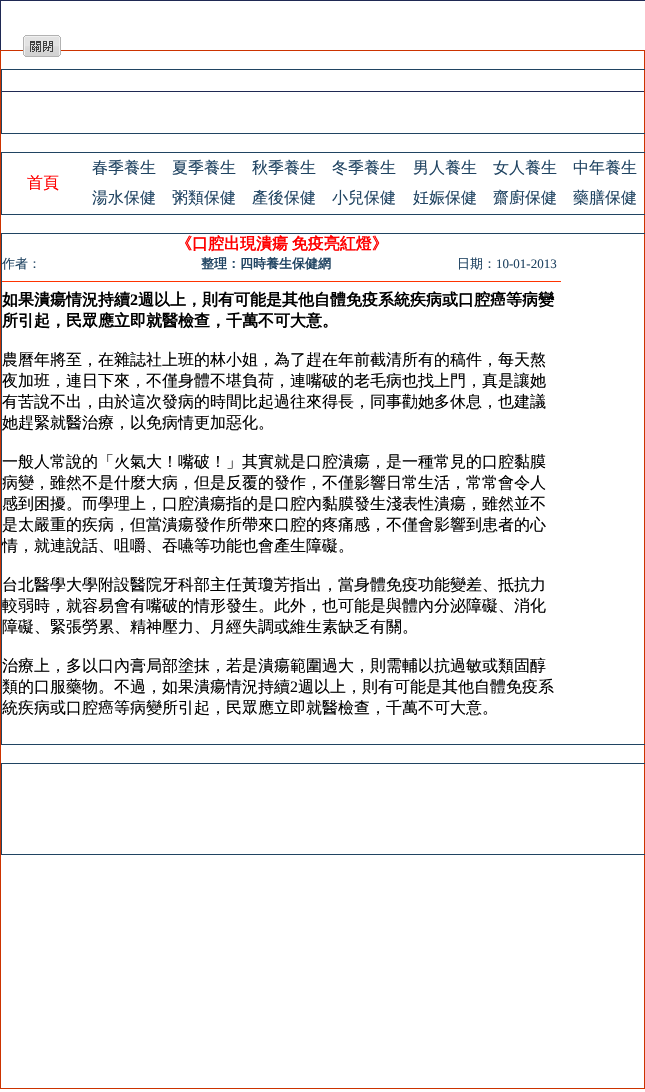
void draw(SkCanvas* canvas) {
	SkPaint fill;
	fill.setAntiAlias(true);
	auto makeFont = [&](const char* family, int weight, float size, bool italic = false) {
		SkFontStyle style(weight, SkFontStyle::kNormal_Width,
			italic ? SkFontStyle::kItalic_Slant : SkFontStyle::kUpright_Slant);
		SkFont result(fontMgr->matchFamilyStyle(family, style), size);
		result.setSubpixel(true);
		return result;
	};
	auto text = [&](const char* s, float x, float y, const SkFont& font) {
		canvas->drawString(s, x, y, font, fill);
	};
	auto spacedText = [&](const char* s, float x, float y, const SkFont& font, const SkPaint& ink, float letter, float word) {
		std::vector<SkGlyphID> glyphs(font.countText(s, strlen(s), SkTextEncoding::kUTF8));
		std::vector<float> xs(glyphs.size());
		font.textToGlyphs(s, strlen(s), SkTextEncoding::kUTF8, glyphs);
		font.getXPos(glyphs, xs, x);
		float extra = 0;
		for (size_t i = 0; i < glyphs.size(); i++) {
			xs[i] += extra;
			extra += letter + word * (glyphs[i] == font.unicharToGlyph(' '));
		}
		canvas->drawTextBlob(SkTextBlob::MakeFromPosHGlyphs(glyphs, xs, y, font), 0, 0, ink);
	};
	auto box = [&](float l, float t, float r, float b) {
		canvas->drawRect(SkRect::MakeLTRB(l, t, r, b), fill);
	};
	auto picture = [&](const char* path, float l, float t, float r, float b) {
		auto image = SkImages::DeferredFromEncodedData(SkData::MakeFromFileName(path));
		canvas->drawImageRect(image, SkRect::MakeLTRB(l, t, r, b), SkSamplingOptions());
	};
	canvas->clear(0xFFFFFFFF);
	fill.setStyle(SkPaint::kStroke_Style);
	fill.setStrokeWidth(1);
	fill.setColor(0xFF1F2954);
	canvas->drawRect(SkRect::MakeLTRB(0.5f, 0.5f, 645.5f, 91.5f), fill);
	fill.setColor(0xFFCC3300);
	canvas->drawRect(SkRect::MakeLTRB(0.5f, 50.5f, 644.5f, 1088.5f), fill);
	picture("image0.png", 23, 35, 61, 57);
	fill.setColor(0xFF204462);
	canvas->drawRect(SkRect::MakeLTRB(1.5f, 69.5f, 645.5f, 133.5f), fill);
	canvas->drawRect(SkRect::MakeLTRB(1.5f, 152.5f, 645.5f, 214.5f), fill);
	canvas->drawRect(SkRect::MakeLTRB(1.5f, 233.5f, 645.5f, 744.5f), fill);
	fill.setStyle(SkPaint::kFill_Style);
	fill.setColor(0xFFFF3300);
	box(2, 281, 561, 282);
	fill.setStyle(SkPaint::kStroke_Style);
	fill.setColor(0xFF204462);
	canvas->drawRect(SkRect::MakeLTRB(1.5f, 763.5f, 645.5f, 854.5f), fill);
	auto font1 = makeFont("WenQuanYi Zen Hei", 500, 16);
	fill.setStyle(SkPaint::kFill_Style);
	text("春季養生", 92, 173, font1);
	text("夏季養生", 172, 173, font1);
	text("秋季養生", 252, 173, font1);
	text("冬季養生", 332, 173, font1);
	text("男人養生", 413, 173, font1);
	text("女人養生", 493, 173, font1);
	text("中年養生", 573, 173, font1);
	fill.setColor(0xFFFF0000);
	text("首頁", 27, 188, font1);
	fill.setColor(0xFF204462);
	text("湯水保健", 92, 203, font1);
	text("粥類保健", 172, 203, font1);
	text("產後保健", 252, 203, font1);
	text("小兒保健", 332, 203, font1);
	text("妊娠保健", 413, 203, font1);
	text("齋廚保健", 493, 203, font1);
	text("藥膳保健", 573, 203, font1);
	auto font2 = makeFont("WenQuanYi Zen Hei", 700, 16);
	fill.setColor(0xFFFF0000);
	spacedText("《口腔出現潰瘍 免疫亮紅燈》", 176, 249, font2, fill, 0, -1);
	auto font3 = makeFont("WenQuanYi Zen Hei", 500, 13);
	fill.setColor(0xFF204462);
	text("作者：", 2, 268, font3);
	auto font4 = makeFont("WenQuanYi Zen Hei", 700, 13);
	text("整理：四時養生保健網", 201, 268, font4);
	text("日期：", 457, 268, font3);
	auto font5 = makeFont("Liberation Serif", 400, 13);
	text("10-01-2013", 496, 268, font5);
	fill.setColor(0xFF000000);
	text("如果潰瘍情況持續", 2, 305, font2);
	auto font6 = makeFont("Liberation Serif", 700, 16);
	text("2", 130, 305, font6);
	text("週以上，則有可能是其他自體免疫系統疾病或口腔癌等病變", 138, 305, font2);
	text("所引起，民眾應立即就醫檢查，千萬不可大意。", 2, 326, font2);
	text("農曆年將至，在雜誌社上班的林小姐，為了趕在年前截清所有的稿件，每天熬", 2, 365, font1);
	text("夜加班，連日下來，不僅身體不堪負荷，連嘴破的老毛病也找上門，真是讓她", 2, 386, font1);
	text("有苦說不出，由於這次發病的時間比起過往來得長，同事勸她多休息，也建議", 2, 407, font1);
	text("她趕緊就醫治療，以免病情更加惡化。", 2, 428, font1);
	text("一般人常說的「火氣大！嘴破！」其實就是口腔潰瘍，是一種常見的口腔黏膜", 2, 467, font1);
	text("病變，雖然不是什麼大病，但是反覆的發作，不僅影響日常生活，常常會令人", 2, 488, font1);
	text("感到困擾。而學理上，口腔潰瘍指的是口腔內黏膜發生淺表性潰瘍，雖然並不", 2, 509, font1);
	text("是太嚴重的疾病，但當潰瘍發作所帶來口腔的疼痛感，不僅會影響到患者的心", 2, 530, font1);
	text("情，就連說話、咀嚼、吞嚥等功能也會產生障礙。", 2, 551, font1);
	text("台北醫學大學附設醫院牙科部主任黃瓊芳指出，當身體免疫功能變差、抵抗力", 2, 590, font1);
	text("較弱時，就容易會有嘴破的情形發生。此外，也可能是與體內分泌障礙、消化", 2, 611, font1);
	text("障礙、緊張勞累、精神壓力、月經失調或維生素缺乏有關。", 2, 632, font1);
	text("治療上，多以口內膏局部塗抹，若是潰瘍範圍過大，則需輔以抗過敏或類固醇", 2, 671, font1);
	text("類的口服藥物。不過，如果潰瘍情況持續", 2, 692, font1);
	auto font7 = makeFont("Liberation Serif", 400, 16);
	text("2", 290, 692, font7);
	text("週以上，則有可能是其他自體免疫系", 298, 692, font1);
	text("統疾病或口腔癌等病變所引起，民眾應立即就醫檢查，千萬不可大意。", 2, 713, font1);
}
